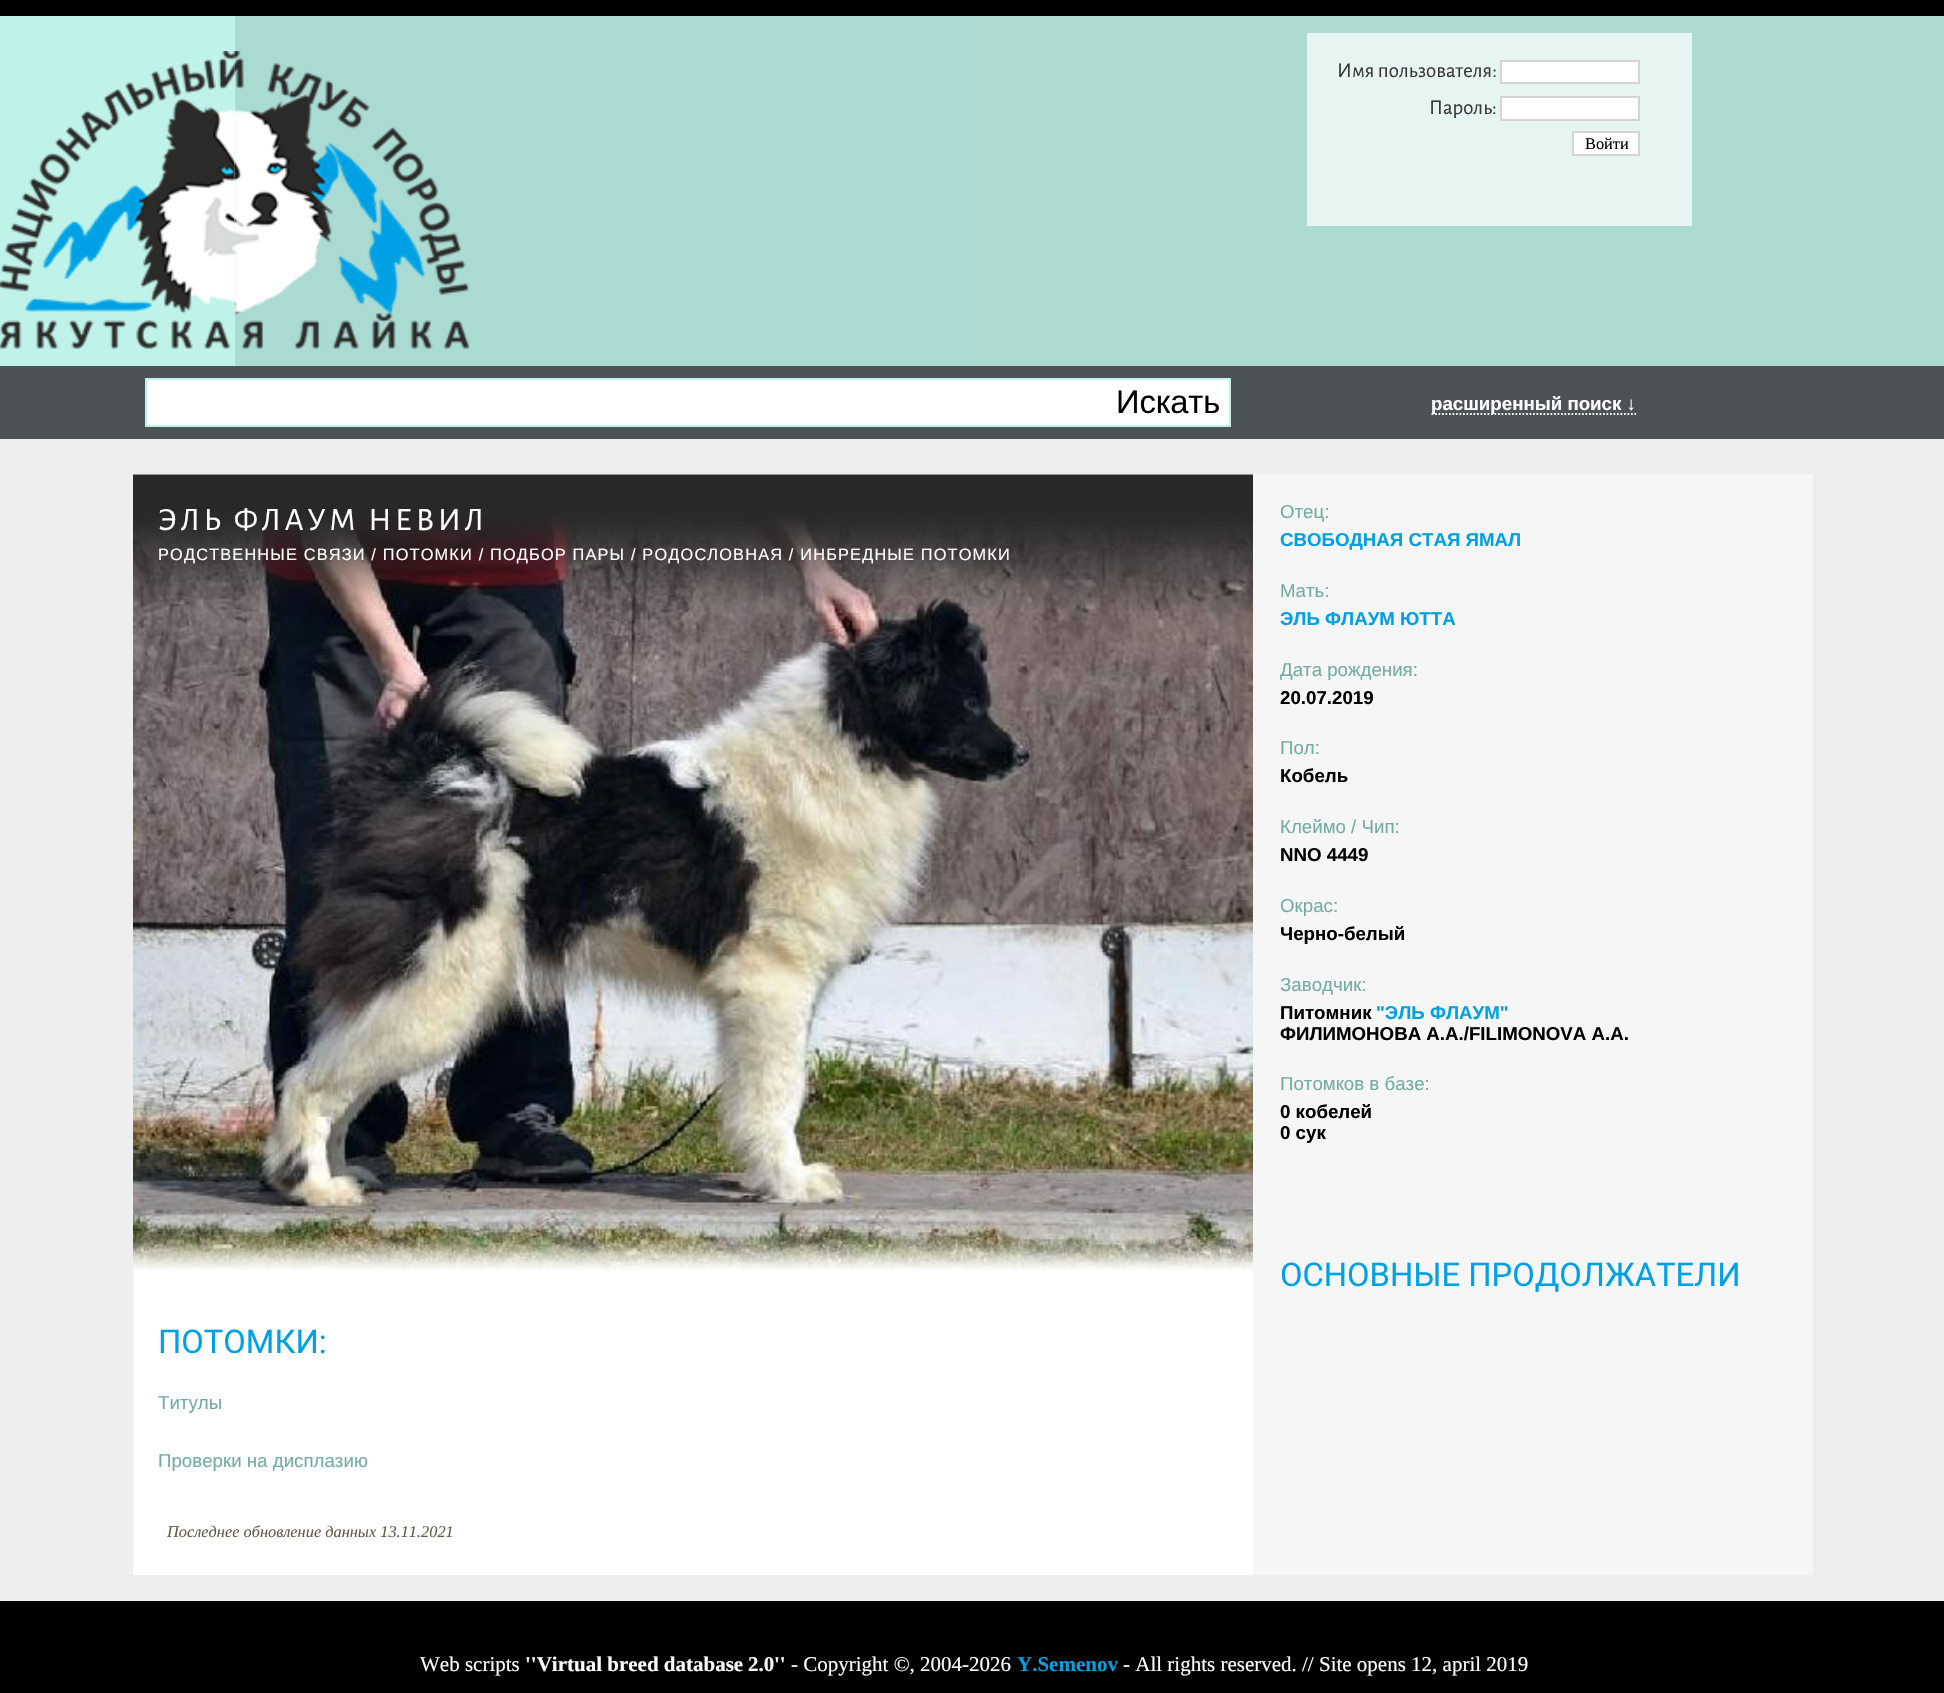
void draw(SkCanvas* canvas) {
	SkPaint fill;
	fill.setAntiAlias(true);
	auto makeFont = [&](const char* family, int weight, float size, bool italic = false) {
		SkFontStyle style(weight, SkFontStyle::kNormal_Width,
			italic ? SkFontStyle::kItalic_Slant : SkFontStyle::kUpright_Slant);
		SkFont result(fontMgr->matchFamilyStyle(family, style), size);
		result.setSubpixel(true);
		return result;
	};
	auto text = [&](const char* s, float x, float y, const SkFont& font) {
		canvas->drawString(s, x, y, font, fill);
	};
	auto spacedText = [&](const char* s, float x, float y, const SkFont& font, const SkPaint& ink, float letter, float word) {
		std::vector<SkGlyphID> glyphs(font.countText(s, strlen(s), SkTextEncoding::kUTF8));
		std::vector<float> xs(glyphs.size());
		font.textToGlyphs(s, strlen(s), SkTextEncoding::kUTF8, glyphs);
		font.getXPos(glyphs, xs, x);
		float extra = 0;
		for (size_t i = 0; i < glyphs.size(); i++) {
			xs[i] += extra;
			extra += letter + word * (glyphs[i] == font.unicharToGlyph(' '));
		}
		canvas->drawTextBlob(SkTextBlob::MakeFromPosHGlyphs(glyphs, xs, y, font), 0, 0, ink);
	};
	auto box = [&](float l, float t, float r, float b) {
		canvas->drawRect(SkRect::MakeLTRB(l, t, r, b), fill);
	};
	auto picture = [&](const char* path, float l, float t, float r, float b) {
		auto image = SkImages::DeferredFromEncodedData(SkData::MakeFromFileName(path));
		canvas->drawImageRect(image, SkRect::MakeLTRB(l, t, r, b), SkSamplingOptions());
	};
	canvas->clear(0xFFEEEEEE);
	fill.setColor(0xFF000000);
	box(0, 0, 1944, 16);
	picture("image0.png", 0, 16, 1944, 366);
	picture("image1.png", 0, 51, 235, 349);
	fill.setColor(0xFFAADBD3);
	box(235, 16, 973, 366);
	picture("image2.png", 234, 51, 469, 349);
	fill.setColor(0xFFE6F4F2);
	box(1307, 33, 1692, 226);
	fill.setColor(0xFFFFFFFF);
	canvas->drawRect(SkRect::MakeLTRB(1501, 61, 1639, 83), fill);
	fill.setStyle(SkPaint::kStroke_Style);
	fill.setStrokeWidth(2);
	fill.setColor(0xFFD4D4D4);
	canvas->drawRect(SkRect::MakeLTRB(1501, 61, 1639, 83), fill);
	fill.setStyle(SkPaint::kFill_Style);
	fill.setColor(0xFFFFFFFF);
	canvas->drawRect(SkRect::MakeLTRB(1501, 97, 1639, 120), fill);
	fill.setStyle(SkPaint::kStroke_Style);
	fill.setColor(0xFFD4D4D4);
	canvas->drawRect(SkRect::MakeLTRB(1501, 97, 1639, 120), fill);
	fill.setStyle(SkPaint::kFill_Style);
	fill.setColor(0xFFFFFFFF);
	canvas->drawRect(SkRect::MakeLTRB(1573, 132, 1639, 155), fill);
	fill.setStyle(SkPaint::kStroke_Style);
	fill.setColor(0xFFD4D4D4);
	canvas->drawRect(SkRect::MakeLTRB(1573, 132, 1639, 155), fill);
	fill.setStyle(SkPaint::kFill_Style);
	fill.setColor(0xFF4D5256);
	box(0, 366, 1944, 439);
	fill.setColor(0xFFFFFFFF);
	box(147, 380, 1229, 425);
	fill.setColor(0xFFBCF3EA);
	box(145, 378, 1230, 380);
	box(145, 425, 1108, 427);
	box(145, 378, 147, 427);
	box(1229, 378, 1231, 427);
	box(1108, 425, 1230, 427);
	fill.setStyle(SkPaint::kStroke_Style);
	fill.setStrokeWidth(1.8f);
	fill.setColor(0xFFFFFFFF);
	fill.setPathEffect(SkDashPathEffect::Make({{1.75f, 1.75f}}, 0));
	canvas->drawPath(SkPathBuilder().moveTo(1431.5f, 414).lineTo(1636, 414).detach(), fill);
	fill.setPathEffect(nullptr);
	fill.setStyle(SkPaint::kFill_Style);
	box(133, 474, 1253, 1575);
	picture("image3.png", 133, 513, 1253, 1271);
	picture("image4.png", 133, 474, 1253, 611);
	picture("image5.png", 133, 1233, 1253, 1271);
	fill.setColor(0xFFF6F6F6);
	box(1253, 474, 1813, 1575);
	fill.setColor(0xFF000000);
	box(0, 1601, 1944, 1693);
	auto font1 = makeFont("Alegreya Sans", 400, 21);
	fill.setColor(0xFF383838);
	text("Имя пользователя:", 1337, 77, font1);
	text("Пароль:", 1429, 114, font1);
	auto font2 = makeFont("Liberation Serif", 400, 16.33f);
	fill.setColor(0xFF000000);
	text("Войти", 1585, 149, font2);
	auto font3 = makeFont("Liberation Sans", 400, 32.7f);
	text("Искать", 1116, 413, font3);
	auto font4 = makeFont("Liberation Sans", 700, 18.7f);
	fill.setColor(0xFFFFFFFF);
	text("расширенный поиск ↓", 1431, 410, font4);
	auto font5 = makeFont("Alegreya Sans", 400, 32.7f);
	spacedText("ЭЛЬ ФЛАУМ НЕВИЛ", 158, 530, font5, fill, 3.5f, 0);
	auto font6 = makeFont("Liberation Sans", 400, 16.33f);
	spacedText("РОДСТВЕННЫЕ СВЯЗИ / ПОТОМКИ / ПОДБОР ПАРЫ / РОДОСЛОВНАЯ / ИНБРЕДНЫЕ ПОТОМКИ", 158, 560, font6, fill, 1.17f, 0);
	auto font7 = makeFont("Roboto", 400, 32.7f);
	fill.setColor(0xFF00A1E4);
	text("ПОТОМКИ:", 158, 1353, font7);
	auto font8 = makeFont("Liberation Sans", 400, 18.7f);
	fill.setColor(0xFF73ACA1);
	text("Титулы", 158, 1409, font8);
	text("Проверки на дисплазию", 158, 1467, font8);
	auto font9 = makeFont("Liberation Serif", 400, 16.33f, true);
	fill.setColor(0xFF615B4A);
	text("Последнее обновление данных 13.11.2021", 167, 1537, font9);
	fill.setColor(0xFF73ACA1);
	text("Отец:", 1280, 518, font8);
	fill.setColor(0xFF00A1E4);
	text("СВОБОДНАЯ СТАЯ ЯМАЛ", 1280, 546, font4);
	fill.setColor(0xFF73ACA1);
	text("Мать:", 1280, 597, font8);
	fill.setColor(0xFF00A1E4);
	text("ЭЛЬ ФЛАУМ ЮТТА", 1280, 625, font4);
	fill.setColor(0xFF73ACA1);
	text("Дата рождения:", 1280, 676, font8);
	fill.setColor(0xFF000000);
	text("20.07.2019", 1280, 704, font4);
	fill.setColor(0xFF73ACA1);
	text("Пол:", 1280, 754, font8);
	fill.setColor(0xFF000000);
	text("Кобель", 1280, 782, font4);
	fill.setColor(0xFF73ACA1);
	text("Клеймо / Чип:", 1280, 833, font8);
	fill.setColor(0xFF000000);
	text("NNO 4449", 1280, 861, font4);
	fill.setColor(0xFF73ACA1);
	text("Окрас:", 1280, 912, font8);
	fill.setColor(0xFF000000);
	text("Черно-белый", 1280, 940, font4);
	fill.setColor(0xFF73ACA1);
	text("Заводчик:", 1280, 991, font8);
	fill.setColor(0xFF000000);
	text("Питомник", 1280, 1019, font4);
	fill.setColor(0xFF00A1E4);
	text("\"ЭЛЬ ФЛАУМ\"", 1376, 1019, font4);
	fill.setColor(0xFF000000);
	text("ФИЛИМОНОВА А.А./FILIMONOVA A.A.", 1280, 1040, font4);
	fill.setColor(0xFF73ACA1);
	text("Потомков в базе:", 1280, 1090, font8);
	fill.setColor(0xFF000000);
	text("0 кобелей", 1280, 1118, font4);
	text("0 сук", 1280, 1139, font4);
	fill.setColor(0xFF00A1E4);
	text("ОСНОВНЫЕ ПРОДОЛЖАТЕЛИ", 1280, 1286, font7);
	auto font10 = makeFont("Liberation Serif", 400, 21);
	fill.setColor(0xFFFFFFFF);
	text("Web scripts", 420, 1671, font10);
	auto font11 = makeFont("Liberation Serif", 700, 21);
	text("''Virtual breed database", 525, 1671, font11);
	fill.setColor(0xFFF8F5F0);
	text("2.0", 748, 1671, font11);
	fill.setColor(0xFFFFFFFF);
	text("''", 774, 1671, font11);
	text("- Copyright ©, 2004-2026", 791, 1671, font10);
	fill.setColor(0xFF00A1E4);
	text("Y.Semenov", 1017, 1671, font11);
	fill.setColor(0xFFFFFFFF);
	text("- All rights reserved. // Site opens 12, april 2019", 1123, 1671, font10);
}
